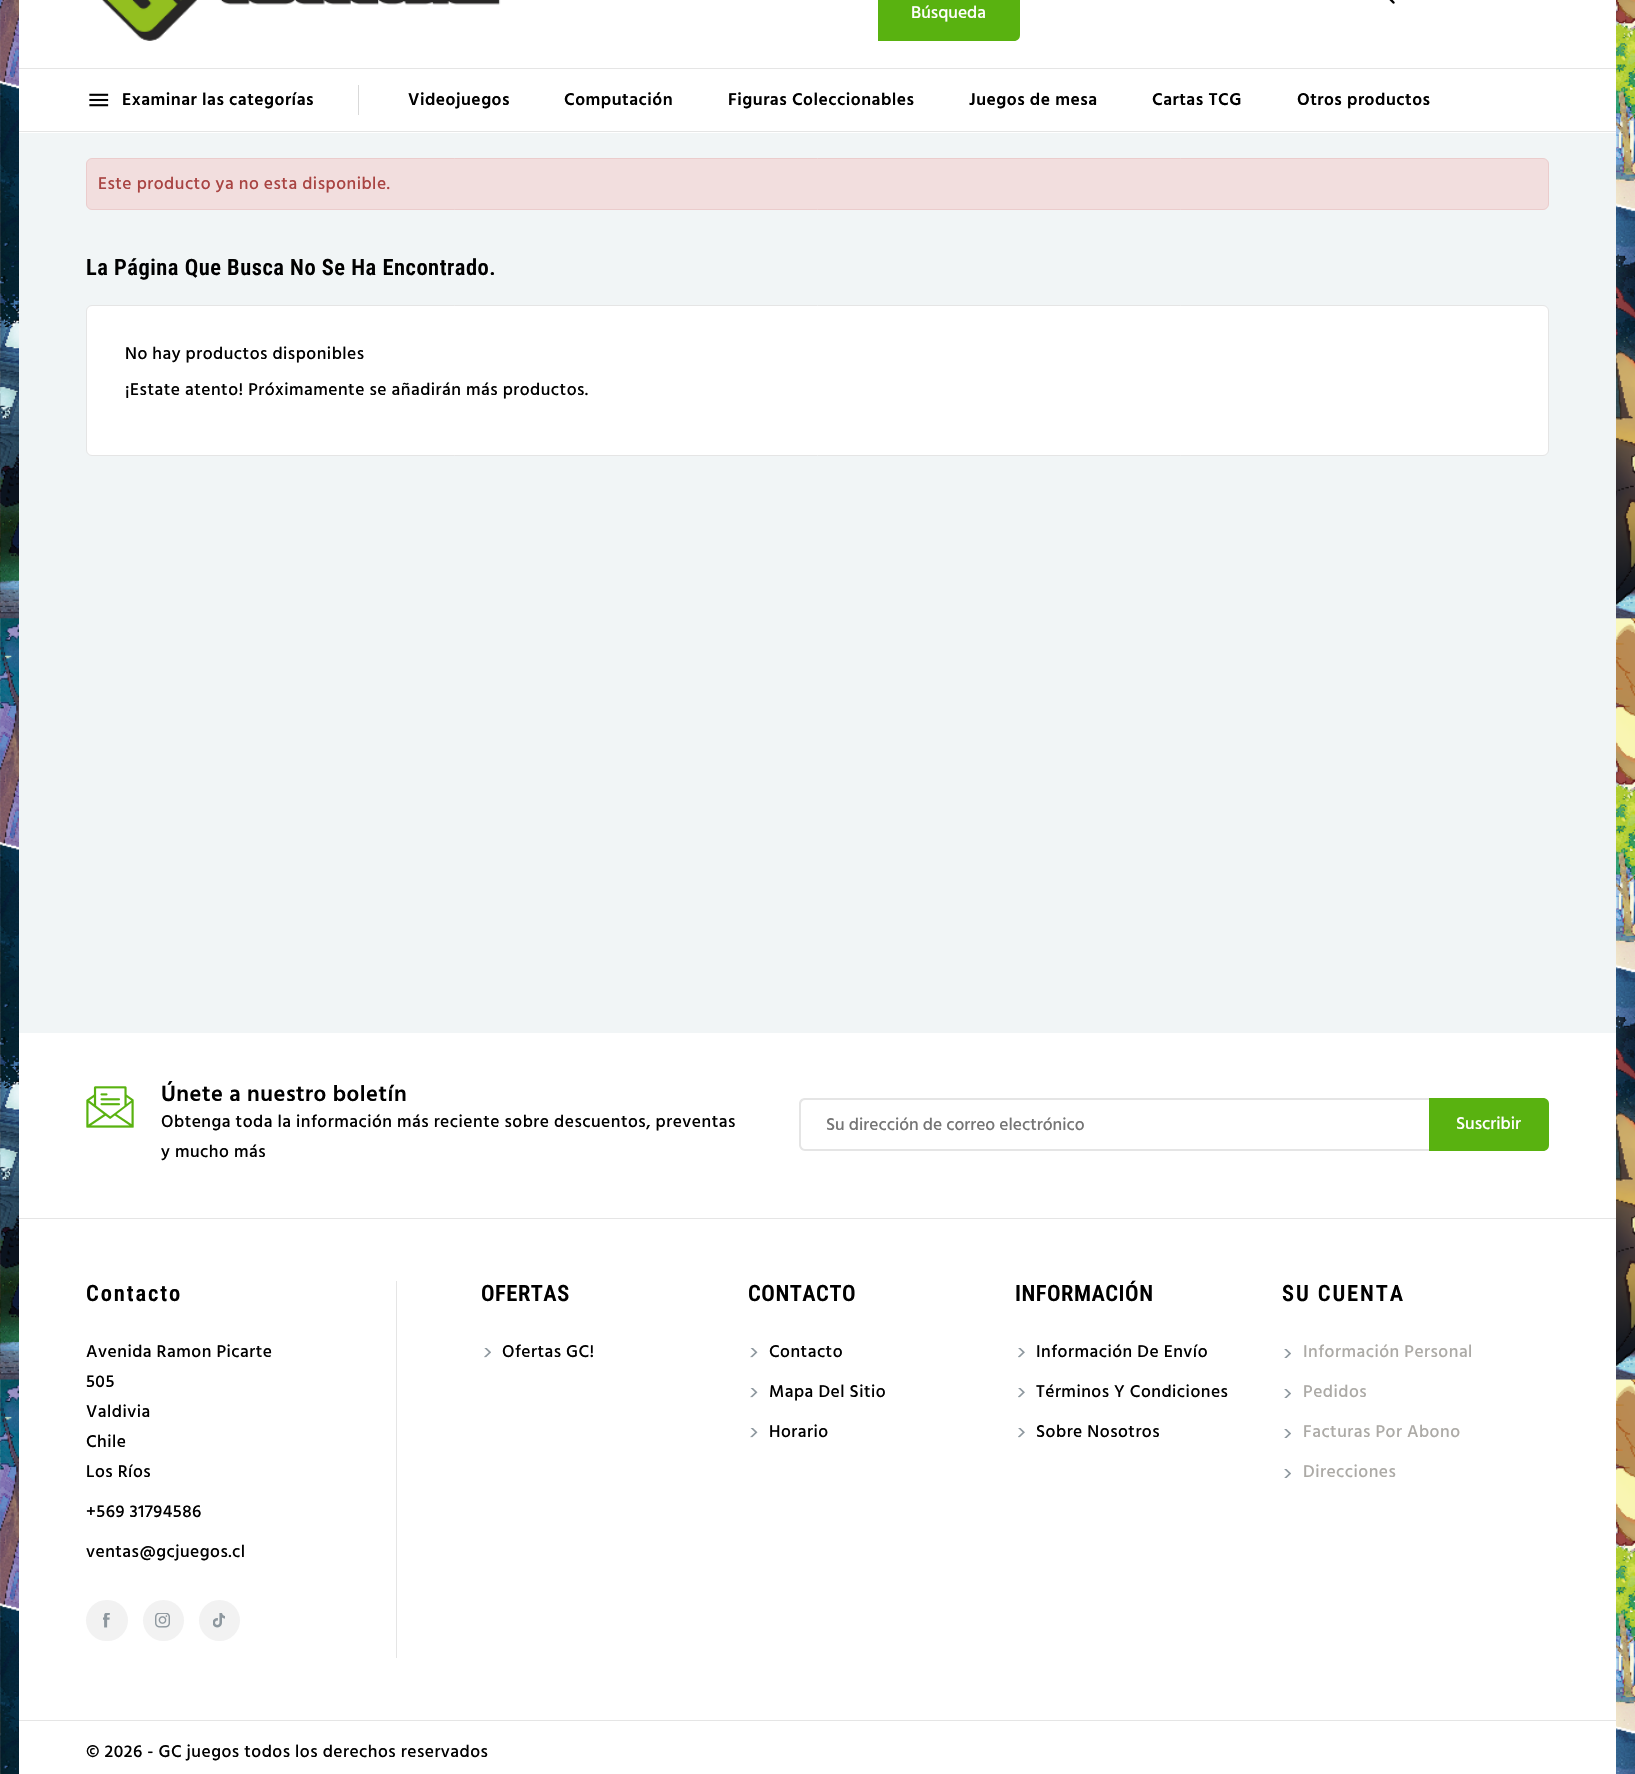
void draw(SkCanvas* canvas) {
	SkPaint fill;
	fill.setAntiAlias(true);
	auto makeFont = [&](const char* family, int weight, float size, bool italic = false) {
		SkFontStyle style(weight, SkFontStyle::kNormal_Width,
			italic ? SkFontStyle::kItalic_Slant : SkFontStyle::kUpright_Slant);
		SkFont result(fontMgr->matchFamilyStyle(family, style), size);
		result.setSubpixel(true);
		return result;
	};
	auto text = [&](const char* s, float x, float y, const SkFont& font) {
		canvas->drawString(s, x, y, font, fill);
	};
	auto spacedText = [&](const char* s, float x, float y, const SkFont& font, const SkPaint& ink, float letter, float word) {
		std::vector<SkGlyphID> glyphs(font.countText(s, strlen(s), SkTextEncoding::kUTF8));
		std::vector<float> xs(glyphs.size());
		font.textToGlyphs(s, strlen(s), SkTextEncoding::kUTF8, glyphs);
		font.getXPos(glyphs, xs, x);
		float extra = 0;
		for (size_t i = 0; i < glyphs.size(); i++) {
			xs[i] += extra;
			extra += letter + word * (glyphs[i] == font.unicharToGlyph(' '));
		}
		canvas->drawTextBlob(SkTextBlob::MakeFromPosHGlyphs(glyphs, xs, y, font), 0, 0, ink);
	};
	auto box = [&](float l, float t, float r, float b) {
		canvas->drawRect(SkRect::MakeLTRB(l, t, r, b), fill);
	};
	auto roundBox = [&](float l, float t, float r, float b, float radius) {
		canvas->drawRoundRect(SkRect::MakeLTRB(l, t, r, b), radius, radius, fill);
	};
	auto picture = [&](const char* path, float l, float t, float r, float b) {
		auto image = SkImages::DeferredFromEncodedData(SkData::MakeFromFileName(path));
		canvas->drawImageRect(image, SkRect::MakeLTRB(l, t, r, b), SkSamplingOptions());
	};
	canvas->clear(0xFFFFFFFF);
	picture("image0.png", 0, 0, 1635, 1774);
	fill.setColor(0xFFF1F5F6);
	box(19, 133, 1616, 1033);
	fill.setColor(0xFFFFFFFF);
	box(19, 0, 1616, 133);
	picture("image1.png", 102, 0, 501, 41);
	picture("image2.png", 1389, 0, 1395, 4);
	fill.setColor(0xFF59B210);
	canvas->drawPath(SkPathBuilder().moveTo(878, -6).lineTo(1014, -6).cubicTo(1017.5f, -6, 1020, -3.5f, 1020, 0).lineTo(1020, 35).cubicTo(1020, 38.5f, 1017.5f, 41, 1014, 41).lineTo(878, 41).close().detach(), fill);
	fill.setColor(0xFFE5E5E5);
	box(19, 68, 1616, 69);
	box(19, 131, 1616, 132);
	fill.setColor(0xFFD9D9D9);
	box(358, 85, 359, 115);
	picture("image3.png", 89, 93, 109, 107);
	fill.setColor(0xFFF2DEDE);
	canvas->drawRoundRect(SkRect::MakeLTRB(86.5f, 158.5f, 1548.5f, 209.5f), 5.5f, 5.5f, fill);
	fill.setStyle(SkPaint::kStroke_Style);
	fill.setStrokeWidth(1);
	fill.setColor(0xFFEBCCCC);
	canvas->drawRoundRect(SkRect::MakeLTRB(86.5f, 158.5f, 1548.5f, 209.5f), 5.5f, 5.5f, fill);
	fill.setStyle(SkPaint::kFill_Style);
	fill.setColor(0xFFFFFFFF);
	canvas->drawRoundRect(SkRect::MakeLTRB(86.5f, 305.5f, 1548.5f, 455.5f), 5.5f, 5.5f, fill);
	fill.setStyle(SkPaint::kStroke_Style);
	fill.setColor(0xFFE5E5E5);
	canvas->drawRoundRect(SkRect::MakeLTRB(86.5f, 305.5f, 1548.5f, 455.5f), 5.5f, 5.5f, fill);
	fill.setStyle(SkPaint::kFill_Style);
	fill.setColor(0xFFFFFFFF);
	box(19, 1033, 1616, 1774);
	fill.setColor(0xFFE5E5E5);
	box(19, 1218, 1616, 1219);
	picture("image4.png", 86, 1086, 134, 1128);
	canvas->drawPath(SkPathBuilder(SkPathFillType::kEvenOdd).moveTo(805, 1098).lineTo(1429, 1098).lineTo(1429, 1151).lineTo(805, 1151).cubicTo(802, 1151, 799, 1148, 799, 1145).lineTo(799, 1104).cubicTo(799, 1100, 802, 1098, 805, 1098).close().moveTo(805, 1100).lineTo(1429, 1100).lineTo(1429, 1149).lineTo(805, 1149).cubicTo(803, 1149, 801, 1147, 801, 1145).lineTo(801, 1104).cubicTo(801, 1102, 803, 1100, 805, 1100).close().detach(), fill);
	fill.setColor(0xFF59B210);
	canvas->drawPath(SkPathBuilder().moveTo(1429, 1098).lineTo(1543, 1098).cubicTo(1546.5f, 1098, 1549, 1100.5f, 1549, 1104).lineTo(1549, 1145).cubicTo(1549, 1148.5f, 1546.5f, 1151, 1543, 1151).lineTo(1429, 1151).close().detach(), fill);
	fill.setColor(0xFFE5E5E5);
	box(396, 1281, 397, 1658);
	fill.setColor(0xFFF2F2F2);
	roundBox(86, 1600, 128, 1641, 20.5f);
	picture("image5.png", 103, 1613, 110, 1628);
	canvas->drawCircle(163.5f, 1620.5f, 20.5f, fill);
	picture("image6.png", 155, 1613, 170, 1628);
	canvas->drawCircle(219.5f, 1620.5f, 20.5f, fill);
	picture("image7.png", 213, 1613, 225, 1628);
	picture("image8.png", 484, 1348, 491, 1358);
	picture("image9.png", 750, 1348, 758, 1358);
	picture("image9.png", 750, 1388, 758, 1398);
	picture("image9.png", 750, 1428, 758, 1438);
	picture("image10.png", 1018, 1348, 1025, 1358);
	picture("image10.png", 1018, 1388, 1025, 1398);
	picture("image10.png", 1018, 1428, 1025, 1438);
	picture("image11.png", 1284, 1349, 1291, 1358);
	picture("image11.png", 1284, 1389, 1291, 1398);
	picture("image11.png", 1284, 1429, 1291, 1438);
	picture("image11.png", 1284, 1469, 1291, 1478);
	fill.setColor(0xFFE5E5E5);
	box(19, 1720, 1616, 1721);
	auto font1 = makeFont("Hind Siliguri", 500, 17.5f);
	fill.setColor(0xFFFFFFFF);
	text("Búsqueda", 911, 18, font1);
	auto font2 = makeFont("Hind Siliguri", 600, 17.5f);
	fill.setColor(0xFF000000);
	spacedText("Examinar las categorías", 122, 105, font2, fill, 0.5f, 0);
	spacedText("Videojuegos", 408, 105, font2, fill, 0.5f, 0);
	spacedText("Computación", 564, 105, font2, fill, 0.5f, 0);
	spacedText("Figuras Coleccionables", 728, 105, font2, fill, 0.5f, 0);
	spacedText("Juegos de mesa", 969, 105, font2, fill, 0.5f, 0);
	spacedText("Cartas TCG", 1152, 105, font2, fill, 0.5f, 0);
	spacedText("Otros productos", 1297, 105, font2, fill, 0.5f, 0);
	fill.setColor(0xFFA94442);
	spacedText("Este producto ya no esta disponible.", 98, 189, font1, fill, 0.5f, 0);
	auto font3 = makeFont("Roboto Condensed", 600, 22.5f);
	fill.setColor(0xFF000000);
	spacedText("La Página Que Busca No Se Ha Encontrado.", 86, 275, font3, fill, 0.5f, 0);
	spacedText("No hay productos disponibles", 125, 359, font1, fill, 0.5f, 0);
	spacedText("¡Estate atento! Próximamente se añadirán más productos.", 125, 395, font1, fill, 0.5f, 0);
	auto font4 = makeFont("Hind Siliguri", 600, 22.5f);
	spacedText("Únete a nuestro boletín", 161, 1101, font4, fill, 0.5f, 0);
	spacedText("Obtenga toda la información más reciente sobre descuentos, preventas", 161, 1127, font1, fill, 0.5f, 0);
	spacedText("y mucho más", 161, 1157, font1, fill, 0.5f, 0);
	fill.setColor(0xFF757575);
	text("Su dirección de correo electrónico", 826, 1130, font1);
	fill.setColor(0xFFFFFFFF);
	text("Suscribir", 1456, 1129, font1);
	fill.setColor(0xFF000000);
	spacedText("Contacto", 86, 1301, font3, fill, 1.9f, 0);
	spacedText("Avenida Ramon Picarte", 86, 1357, font1, fill, 0.5f, 0);
	spacedText("505", 86, 1387, font1, fill, 0.5f, 0);
	spacedText("Valdivia", 86, 1417, font1, fill, 0.5f, 0);
	spacedText("Chile", 86, 1447, font1, fill, 0.5f, 0);
	spacedText("Los Ríos", 86, 1477, font1, fill, 0.5f, 0);
	spacedText("+569 31794586", 86, 1517, font1, fill, 0.5f, 0);
	spacedText("ventas@gcjuegos.cl", 86, 1557, font1, fill, 0.5f, 0);
	spacedText("OFERTAS", 481, 1301, font3, fill, 0.5f, 0);
	spacedText("Ofertas GC!", 502, 1357, font1, fill, 0.5f, 0);
	spacedText("CONTACTO", 748, 1301, font3, fill, 0.5f, 0);
	spacedText("Contacto", 769, 1357, font1, fill, 0.5f, 0);
	spacedText("Mapa Del Sitio", 769, 1397, font1, fill, 0.5f, 0);
	spacedText("Horario", 769, 1437, font1, fill, 0.5f, 0);
	spacedText("INFORMACIÓN", 1015, 1301, font3, fill, 0.5f, 0);
	spacedText("Información De Envío", 1036, 1357, font1, fill, 0.5f, 0);
	spacedText("Términos Y Condiciones", 1036, 1397, font1, fill, 0.5f, 0);
	spacedText("Sobre Nosotros", 1036, 1437, font1, fill, 0.5f, 0);
	spacedText("SU CUENTA", 1282, 1301, font3, fill, 1.9f, 0);
	fill.setColor(0xFFACAAA6);
	spacedText("Información Personal", 1303, 1357, font1, fill, 0.5f, 0);
	spacedText("Pedidos", 1303, 1397, font1, fill, 0.5f, 0);
	spacedText("Facturas Por Abono", 1303, 1437, font1, fill, 0.5f, 0);
	spacedText("Direcciones", 1303, 1477, font1, fill, 0.5f, 0);
	fill.setColor(0xFF000000);
	spacedText("© 2026 - GC juegos todos los derechos reservados", 86, 1757, font1, fill, 0.5f, 0);
}
